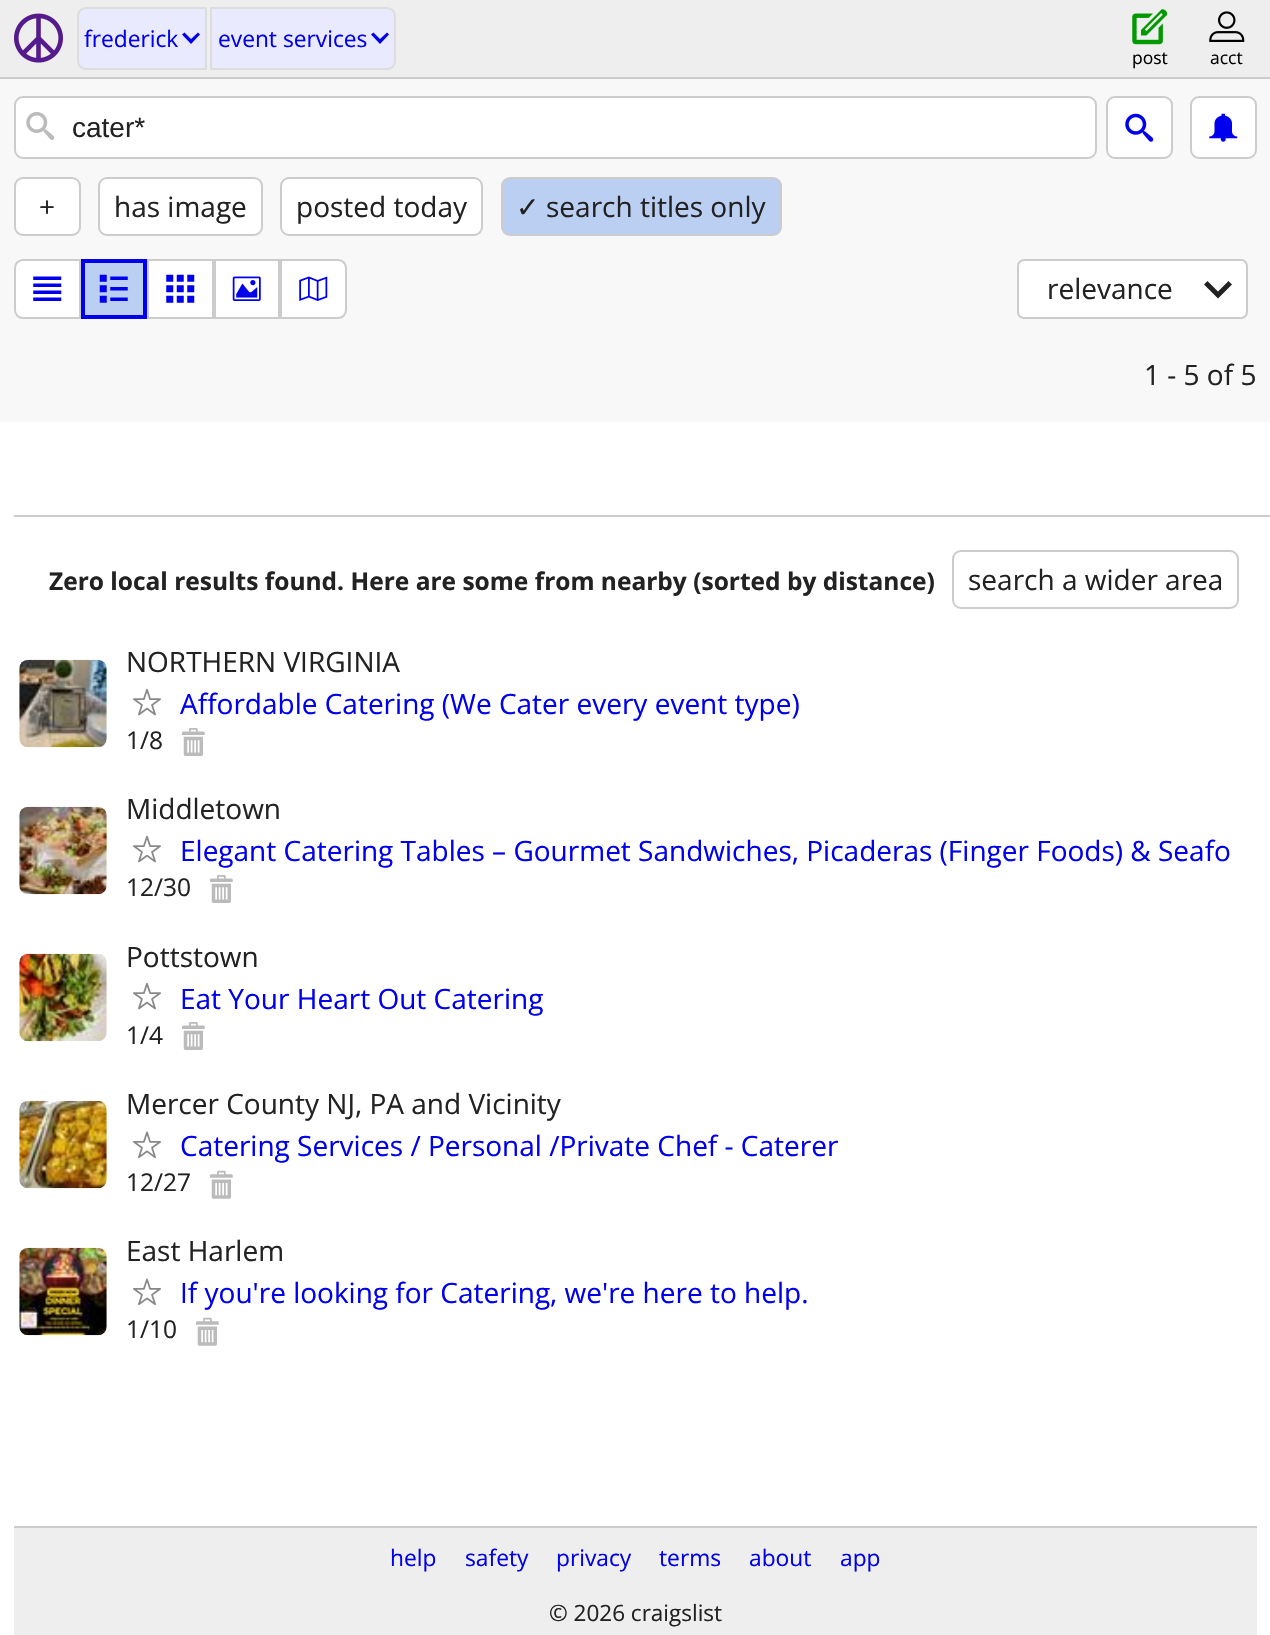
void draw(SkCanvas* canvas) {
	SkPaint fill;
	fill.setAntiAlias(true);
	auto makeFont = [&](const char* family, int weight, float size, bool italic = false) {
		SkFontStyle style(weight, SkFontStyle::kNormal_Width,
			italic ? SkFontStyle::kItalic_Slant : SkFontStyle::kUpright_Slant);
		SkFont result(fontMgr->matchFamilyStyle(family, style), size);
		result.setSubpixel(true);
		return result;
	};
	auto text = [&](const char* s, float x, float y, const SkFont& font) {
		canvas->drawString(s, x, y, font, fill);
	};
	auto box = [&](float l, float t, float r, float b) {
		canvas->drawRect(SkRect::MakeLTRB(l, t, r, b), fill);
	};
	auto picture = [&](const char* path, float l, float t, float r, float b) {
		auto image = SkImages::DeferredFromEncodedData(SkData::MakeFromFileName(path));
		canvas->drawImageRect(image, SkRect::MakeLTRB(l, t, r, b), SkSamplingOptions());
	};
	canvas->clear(0xFFFFFFFF);
	fill.setColor(0xFFEEEEEE);
	box(0, 0, 1270, 77);
	fill.setColor(0xFFCCCCCC);
	box(0, 77, 1270, 79);
	picture("image0.png", 14, 13, 63, 63);
	fill.setColor(0xFFEAEAFF);
	canvas->drawPath(SkPathBuilder().moveTo(86, 8).lineTo(206, 8).lineTo(206, 69).lineTo(86, 69).cubicTo(81.5f, 69, 78, 65.5f, 78, 61).lineTo(78, 16).cubicTo(78, 11.5f, 81.5f, 8, 86, 8).close().detach(), fill);
	fill.setStyle(SkPaint::kStroke_Style);
	fill.setStrokeWidth(2);
	fill.setColor(0xFFDDDDDD);
	canvas->drawPath(SkPathBuilder().moveTo(86, 8).lineTo(206, 8).lineTo(206, 69).lineTo(86, 69).cubicTo(81.5f, 69, 78, 65.5f, 78, 61).lineTo(78, 16).cubicTo(78, 11.5f, 81.5f, 8, 86, 8).close().detach(), fill);
	fill.setStyle(SkPaint::kFill_Style);
	fill.setColor(0xFF0000EE);
	canvas->drawPath(SkPathBuilder().moveTo(200, 34.5f).lineTo(198, 32.5f).lineTo(191, 39).lineTo(184.5f, 32.5f).lineTo(182, 34.5f).lineTo(191, 44).close().detach(), fill);
	fill.setColor(0xFFEAEAFF);
	canvas->drawPath(SkPathBuilder().moveTo(211, 8).lineTo(387, 8).cubicTo(391.5f, 8, 395, 11.5f, 395, 16).lineTo(395, 61).cubicTo(395, 65.5f, 391.5f, 69, 387, 69).lineTo(211, 69).close().detach(), fill);
	fill.setStyle(SkPaint::kStroke_Style);
	fill.setColor(0xFFDDDDDD);
	canvas->drawPath(SkPathBuilder().moveTo(211, 8).lineTo(387, 8).cubicTo(391.5f, 8, 395, 11.5f, 395, 16).lineTo(395, 61).cubicTo(395, 65.5f, 391.5f, 69, 387, 69).lineTo(211, 69).close().detach(), fill);
	fill.setStyle(SkPaint::kFill_Style);
	fill.setColor(0xFF0000EE);
	canvas->drawPath(SkPathBuilder().moveTo(389, 34.5f).lineTo(387, 32.5f).lineTo(380, 39).lineTo(373.5f, 32.5f).lineTo(371, 34.5f).lineTo(380, 44).close().detach(), fill);
	picture("image1.png", 1132, 9, 1168, 45);
	picture("image2.png", 1209, 11, 1245, 42);
	fill.setColor(0xFFF8F8F8);
	box(0, 79, 1270, 422);
	fill.setColor(0xFFFFFFFF);
	canvas->drawRoundRect(SkRect::MakeLTRB(15, 97, 1096, 158), 8, 8, fill);
	fill.setStyle(SkPaint::kStroke_Style);
	fill.setColor(0xFFCCCCCC);
	canvas->drawRoundRect(SkRect::MakeLTRB(15, 97, 1096, 158), 8, 8, fill);
	picture("image3.png", 26, 112, 55, 140);
	fill.setStyle(SkPaint::kFill_Style);
	fill.setColor(0xFFFFFFFF);
	canvas->drawRoundRect(SkRect::MakeLTRB(1107, 97, 1172, 158), 8, 8, fill);
	fill.setStyle(SkPaint::kStroke_Style);
	fill.setColor(0xFFCCCCCC);
	canvas->drawRoundRect(SkRect::MakeLTRB(1107, 97, 1172, 158), 8, 8, fill);
	picture("image4.png", 1125, 113, 1154, 142);
	fill.setStyle(SkPaint::kFill_Style);
	fill.setColor(0xFFFFFFFF);
	canvas->drawRoundRect(SkRect::MakeLTRB(1191, 97, 1256, 158), 8, 8, fill);
	fill.setStyle(SkPaint::kStroke_Style);
	fill.setColor(0xFFCCCCCC);
	canvas->drawRoundRect(SkRect::MakeLTRB(1191, 97, 1256, 158), 8, 8, fill);
	picture("image5.png", 1209, 113, 1238, 142);
	fill.setStyle(SkPaint::kFill_Style);
	fill.setColor(0xFFFFFFFF);
	canvas->drawRoundRect(SkRect::MakeLTRB(15, 178, 80, 235), 8, 8, fill);
	fill.setStyle(SkPaint::kStroke_Style);
	fill.setColor(0xFFCCCCCC);
	canvas->drawRoundRect(SkRect::MakeLTRB(15, 178, 80, 235), 8, 8, fill);
	fill.setStyle(SkPaint::kFill_Style);
	fill.setColor(0xFFFFFFFF);
	canvas->drawRoundRect(SkRect::MakeLTRB(99, 178, 262, 235), 8, 8, fill);
	fill.setStyle(SkPaint::kStroke_Style);
	fill.setColor(0xFFCCCCCC);
	canvas->drawRoundRect(SkRect::MakeLTRB(99, 178, 262, 235), 8, 8, fill);
	fill.setStyle(SkPaint::kFill_Style);
	fill.setColor(0xFFFFFFFF);
	canvas->drawRoundRect(SkRect::MakeLTRB(281, 178, 482, 235), 8, 8, fill);
	fill.setStyle(SkPaint::kStroke_Style);
	fill.setColor(0xFFCCCCCC);
	canvas->drawRoundRect(SkRect::MakeLTRB(281, 178, 482, 235), 8, 8, fill);
	fill.setStyle(SkPaint::kFill_Style);
	fill.setColor(0xFFBACFF2);
	canvas->drawRoundRect(SkRect::MakeLTRB(502, 178, 781, 235), 8, 8, fill);
	fill.setStyle(SkPaint::kStroke_Style);
	fill.setColor(0xFFCCCCCC);
	canvas->drawRoundRect(SkRect::MakeLTRB(502, 178, 781, 235), 8, 8, fill);
	fill.setStyle(SkPaint::kFill_Style);
	fill.setColor(0xFFFFFFFF);
	canvas->drawPath(SkPathBuilder().moveTo(23, 260).lineTo(80, 260).lineTo(80, 318).lineTo(23, 318).cubicTo(18.5f, 318, 15, 314.5f, 15, 310).lineTo(15, 268).cubicTo(15, 263.5f, 18.5f, 260, 23, 260).close().detach(), fill);
	fill.setStyle(SkPaint::kStroke_Style);
	fill.setColor(0xFFCCCCCC);
	canvas->drawPath(SkPathBuilder().moveTo(23, 260).lineTo(80, 260).lineTo(80, 318).lineTo(23, 318).cubicTo(18.5f, 318, 15, 314.5f, 15, 310).lineTo(15, 268).cubicTo(15, 263.5f, 18.5f, 260, 23, 260).close().detach(), fill);
	picture("image6.png", 33, 276, 62, 301);
	fill.setStyle(SkPaint::kFill_Style);
	fill.setColor(0xFFBACFF2);
	canvas->drawRect(SkRect::MakeLTRB(83, 261, 145, 317), fill);
	fill.setStyle(SkPaint::kStroke_Style);
	fill.setStrokeWidth(4);
	fill.setColor(0xFF0000EE);
	canvas->drawRect(SkRect::MakeLTRB(83, 261, 145, 317), fill);
	picture("image7.png", 99, 274, 128, 303);
	fill.setStyle(SkPaint::kFill_Style);
	fill.setColor(0xFFFFFFFF);
	canvas->drawRect(SkRect::MakeLTRB(148, 260, 213, 318), fill);
	fill.setStyle(SkPaint::kStroke_Style);
	fill.setStrokeWidth(2);
	fill.setColor(0xFFCCCCCC);
	canvas->drawRect(SkRect::MakeLTRB(148, 260, 213, 318), fill);
	picture("image8.png", 166, 274, 195, 303);
	fill.setStyle(SkPaint::kFill_Style);
	fill.setColor(0xFFFFFFFF);
	canvas->drawRect(SkRect::MakeLTRB(215, 260, 279, 318), fill);
	fill.setStyle(SkPaint::kStroke_Style);
	fill.setColor(0xFFCCCCCC);
	canvas->drawRect(SkRect::MakeLTRB(215, 260, 279, 318), fill);
	picture("image9.png", 232, 276, 261, 301);
	fill.setStyle(SkPaint::kFill_Style);
	fill.setColor(0xFFFFFFFF);
	canvas->drawPath(SkPathBuilder().moveTo(281, 260).lineTo(338, 260).cubicTo(342.5f, 260, 346, 263.5f, 346, 268).lineTo(346, 310).cubicTo(346, 314.5f, 342.5f, 318, 338, 318).lineTo(281, 318).close().detach(), fill);
	fill.setStyle(SkPaint::kStroke_Style);
	fill.setColor(0xFFCCCCCC);
	canvas->drawPath(SkPathBuilder().moveTo(281, 260).lineTo(338, 260).cubicTo(342.5f, 260, 346, 263.5f, 346, 268).lineTo(346, 310).cubicTo(346, 314.5f, 342.5f, 318, 338, 318).lineTo(281, 318).close().detach(), fill);
	picture("image10.png", 299, 276, 328, 301);
	fill.setStyle(SkPaint::kFill_Style);
	fill.setColor(0xFFFFFFFF);
	canvas->drawRoundRect(SkRect::MakeLTRB(1018, 260, 1247, 318), 6, 6, fill);
	fill.setStyle(SkPaint::kStroke_Style);
	fill.setColor(0xFFCCCCCC);
	canvas->drawRoundRect(SkRect::MakeLTRB(1018, 260, 1247, 318), 6, 6, fill);
	fill.setStyle(SkPaint::kFill_Style);
	fill.setColor(0xFF222222);
	canvas->drawPath(SkPathBuilder().moveTo(1232, 284.5f).lineTo(1228.5f, 281).lineTo(1218, 291.5f).lineTo(1207.5f, 281).lineTo(1204, 284.5f).lineTo(1218, 298.5f).close().detach(), fill);
	fill.setColor(0xFFCCCCCC);
	box(14, 515, 1270, 517);
	fill.setStyle(SkPaint::kStroke_Style);
	canvas->drawRoundRect(SkRect::MakeLTRB(953, 551, 1238, 608), 8, 8, fill);
	picture("image11.png", 19, 659, 107, 748);
	picture("image12.png", 133, 688, 161, 716);
	picture("image13.png", 182, 728, 205, 756);
	picture("image14.png", 19, 806, 107, 895);
	picture("image12.png", 133, 835, 161, 863);
	picture("image13.png", 210, 875, 233, 903);
	picture("image15.png", 19, 953, 107, 1042);
	picture("image12.png", 133, 982, 161, 1010);
	picture("image13.png", 182, 1022, 205, 1050);
	picture("image16.png", 19, 1100, 107, 1189);
	picture("image17.png", 133, 1131, 161, 1159);
	picture("image18.png", 210, 1170, 233, 1199);
	picture("image19.png", 19, 1247, 107, 1336);
	picture("image17.png", 133, 1278, 161, 1306);
	picture("image18.png", 196, 1317, 219, 1346);
	fill.setStyle(SkPaint::kFill_Style);
	fill.setColor(0xFFEEEEEE);
	box(14, 1528, 1257, 1635);
	fill.setColor(0xFFCCCCCC);
	box(14, 1526, 1257, 1528);
	auto font1 = makeFont("Open Sans", 400, 22.75f);
	fill.setColor(0xFF0000EE);
	text("frederick", 84, 47, font1);
	text("event services", 218, 47, font1);
	auto font2 = makeFont("Open Sans", 400, 17.5f);
	fill.setColor(0xFF000000);
	text("post", 1132, 64, font2);
	text("acct", 1210, 64, font2);
	auto font3 = makeFont("Liberation Sans", 400, 28);
	fill.setColor(0xFF222222);
	text("cater*", 72, 137, font3);
	auto font4 = makeFont("Open Sans", 400, 28);
	text("+", 39, 217, font4);
	text("has image", 114, 217, font4);
	text("posted today", 296, 217, font4);
	auto font5 = makeFont("DejaVu Sans", 400, 28);
	text("✓", 516, 217, font5);
	text("search titles only", 546, 217, font4);
	text("relevance", 1047, 299, font4);
	text("1 - 5 of 5", 1144, 385, font4);
	auto font6 = makeFont("Open Sans", 700, 24.5f);
	text("Zero local results found. Here are some from nearby (sorted by distance)", 49, 590, font6);
	text("search a wider area", 968, 590, font4);
	text("NORTHERN VIRGINIA", 126, 672, font4);
	fill.setColor(0xFF0000EE);
	text("Affordable Catering (We Cater every event type)", 180, 714, font4);
	auto font7 = makeFont("Open Sans", 400, 24.5f);
	fill.setColor(0xFF222222);
	text("1/8", 126, 749, font7);
	text("Middletown", 126, 819, font4);
	fill.setColor(0xFF0000EE);
	text("Elegant Catering Tables – Gourmet Sandwiches, Picaderas (Finger Foods) & Seafo", 180, 861, font4);
	fill.setColor(0xFF222222);
	text("12/30", 126, 896, font7);
	text("Pottstown", 126, 967, font4);
	fill.setColor(0xFF0000EE);
	text("Eat Your Heart Out Catering", 180, 1009, font4);
	fill.setColor(0xFF222222);
	text("1/4", 126, 1044, font7);
	text("Mercer County NJ, PA and Vicinity", 126, 1114, font4);
	fill.setColor(0xFF0000EE);
	text("Catering Services / Personal /Private Chef - Caterer", 180, 1156, font4);
	fill.setColor(0xFF222222);
	text("12/27", 126, 1191, font7);
	text("East Harlem", 126, 1261, font4);
	fill.setColor(0xFF0000EE);
	text("If you're looking for Catering, we're here to help.", 180, 1303, font4);
	fill.setColor(0xFF222222);
	text("1/10", 126, 1338, font7);
	fill.setColor(0xFF0000EE);
	text("help", 390, 1566, font1);
	text("safety", 465, 1566, font1);
	text("privacy", 556, 1566, font1);
	text("terms", 659, 1566, font1);
	text("about", 749, 1566, font1);
	text("app", 840, 1566, font1);
	auto font8 = makeFont("Open Sans", 400, 22.5f);
	fill.setColor(0xFF222222);
	text("© 2026 craigslist", 549, 1621, font8);
}
